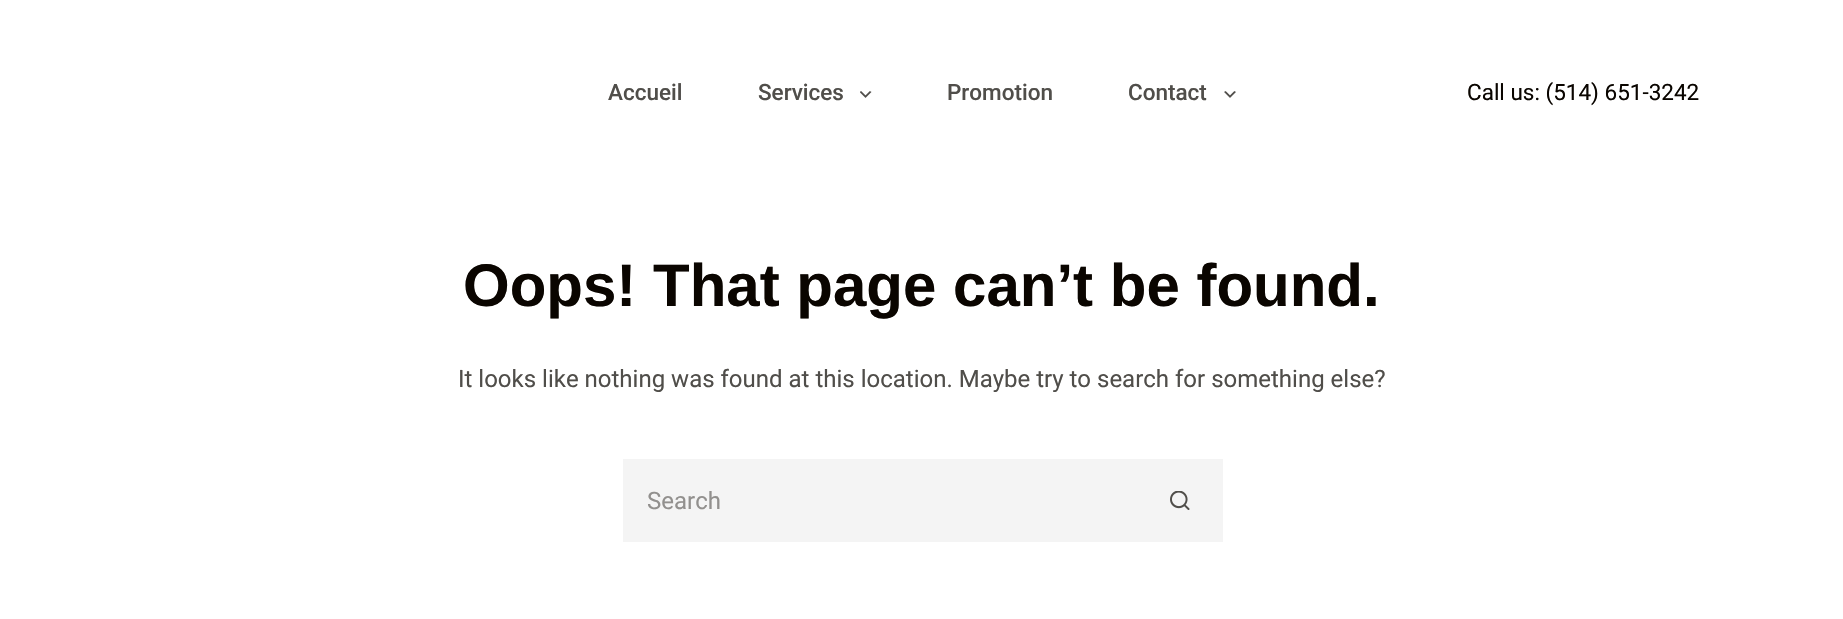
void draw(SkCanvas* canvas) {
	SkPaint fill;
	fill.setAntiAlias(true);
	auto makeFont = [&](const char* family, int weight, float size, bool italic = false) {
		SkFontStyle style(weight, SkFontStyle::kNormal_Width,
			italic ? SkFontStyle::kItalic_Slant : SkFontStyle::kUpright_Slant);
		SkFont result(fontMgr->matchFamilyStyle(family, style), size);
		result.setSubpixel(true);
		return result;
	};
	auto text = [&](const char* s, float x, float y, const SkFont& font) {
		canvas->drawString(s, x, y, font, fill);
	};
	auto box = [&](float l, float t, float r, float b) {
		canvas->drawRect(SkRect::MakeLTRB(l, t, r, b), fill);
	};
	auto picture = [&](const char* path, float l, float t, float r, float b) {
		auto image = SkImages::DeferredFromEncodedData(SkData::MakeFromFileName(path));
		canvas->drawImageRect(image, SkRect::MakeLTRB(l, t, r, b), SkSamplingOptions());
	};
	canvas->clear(0xFFFFFFFF);
	picture("image0.png", 860, 91, 872, 98);
	picture("image1.png", 1224, 91, 1236, 98);
	fill.setColor(0xFFF4F4F4);
	box(623, 459, 1223, 542);
	picture("image2.png", 1170, 491, 1190, 510);
	auto font1 = makeFont("Roboto", 500, 22.5f);
	fill.setColor(0xFF504E4A);
	text("Accueil", 608, 100, font1);
	text("Services", 758, 100, font1);
	text("Promotion", 947, 100, font1);
	text("Contact", 1128, 100, font1);
	auto font2 = makeFont("Roboto", 400, 22.5f);
	fill.setColor(0xFF0A0500);
	text("Call us: (514) 651-3242", 1467, 100, font2);
	auto font3 = makeFont("Liberation Sans", 700, 60);
	text("Oops! That page can’t be found.", 463, 306, font3);
	auto font4 = makeFont("Roboto", 400, 24);
	fill.setColor(0xFF504E4A);
	text("It looks like nothing was found at this location. Maybe try to search for something else?", 458, 387, font4);
	fill.setColor(0xFF92908E);
	text("Search", 647, 509, font4);
}
